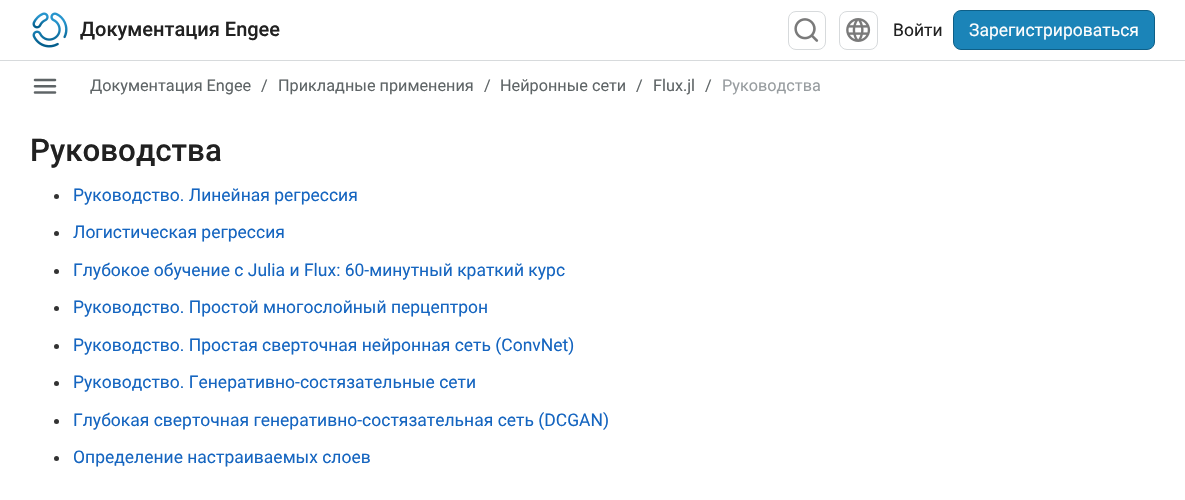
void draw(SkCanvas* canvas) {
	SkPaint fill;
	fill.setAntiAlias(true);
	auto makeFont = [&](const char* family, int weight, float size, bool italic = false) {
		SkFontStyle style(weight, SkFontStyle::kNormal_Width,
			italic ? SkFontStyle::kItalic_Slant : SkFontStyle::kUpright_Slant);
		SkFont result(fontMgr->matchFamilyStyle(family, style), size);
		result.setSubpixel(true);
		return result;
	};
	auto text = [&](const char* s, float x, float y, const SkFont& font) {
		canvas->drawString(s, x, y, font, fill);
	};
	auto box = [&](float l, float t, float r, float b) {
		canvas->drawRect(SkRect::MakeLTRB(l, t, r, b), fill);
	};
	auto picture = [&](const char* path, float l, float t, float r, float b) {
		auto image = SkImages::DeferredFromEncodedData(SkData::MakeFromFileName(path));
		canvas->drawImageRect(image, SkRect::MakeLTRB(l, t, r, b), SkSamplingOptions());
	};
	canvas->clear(0xFFFFFFFF);
	fill.setColor(0xFFD7DADC);
	box(0, 60, 1185, 61);
	picture("image0.png", 32, 12, 68, 48);
	fill.setStyle(SkPaint::kStroke_Style);
	fill.setStrokeWidth(1);
	canvas->drawRoundRect(SkRect::MakeLTRB(788.5f, 11.5f, 825.5f, 49.5f), 7.5f, 7.5f, fill);
	picture("image1.png", 794, 18, 819, 42);
	canvas->drawRoundRect(SkRect::MakeLTRB(839.5f, 11.5f, 877.5f, 49.5f), 7.5f, 7.5f, fill);
	picture("image2.png", 846, 18, 871, 42);
	fill.setStyle(SkPaint::kFill_Style);
	fill.setColor(0xFF1B84B8);
	canvas->drawRoundRect(SkRect::MakeLTRB(953.5f, 10.5f, 1154.5f, 49.5f), 7.5f, 7.5f, fill);
	fill.setStyle(SkPaint::kStroke_Style);
	fill.setColor(0xFF0E5F87);
	canvas->drawRoundRect(SkRect::MakeLTRB(953.5f, 10.5f, 1154.5f, 49.5f), 7.5f, 7.5f, fill);
	picture("image3.png", 33, 78, 57, 94);
	fill.setStyle(SkPaint::kFill_Style);
	fill.setColor(0xFF333333);
	canvas->drawCircle(56.5f, 196.5f, 2.5f, fill);
	canvas->drawCircle(56.5f, 233.5f, 2.5f, fill);
	canvas->drawCircle(56.5f, 271.5f, 2.5f, fill);
	canvas->drawCircle(56.5f, 308.5f, 2.5f, fill);
	canvas->drawCircle(56.5f, 346.5f, 2.5f, fill);
	canvas->drawCircle(56.5f, 383.5f, 2.5f, fill);
	canvas->drawCircle(56.5f, 421.5f, 2.5f, fill);
	canvas->drawCircle(56.5f, 458.5f, 2.5f, fill);
	auto font1 = makeFont("Roboto", 500, 20);
	fill.setColor(0xFF212121);
	text("Документация Engee", 80, 36, font1);
	auto font2 = makeFont("Roboto", 400, 17.5f);
	text("Войти", 893, 36, font2);
	fill.setColor(0xFFFEFEFE);
	text("Зарегистрироваться", 969, 36, font2);
	auto font3 = makeFont("Roboto", 400, 16.25f);
	fill.setColor(0xFF5E6466);
	text("Документация Engee", 90, 91, font3);
	text("/", 261, 91, font3);
	text("Прикладные применения", 278, 91, font3);
	text("/", 484, 91, font3);
	text("Нейронные сети", 500, 91, font3);
	text("/", 636, 91, font3);
	text("Flux.jl", 653, 91, font3);
	text("/", 705, 91, font3);
	fill.setColor(0xFF989DA0);
	text("Руководства", 722, 91, font3);
	auto font4 = makeFont("Roboto", 500, 31.25f);
	fill.setColor(0xFF212121);
	text("Руководства", 30, 161, font4);
	fill.setColor(0xFF1565C0);
	text("Руководство. Линейная регрессия", 73, 201, font2);
	text("Логистическая регрессия", 73, 238, font2);
	text("Глубокое обучение с Julia и Flux: 60-минутный краткий курс", 73, 276, font2);
	text("Руководство. Простой многослойный перцептрон", 73, 313, font2);
	text("Руководство. Простая сверточная нейронная сеть (ConvNet)", 73, 351, font2);
	text("Руководство. Генеративно-состязательные сети", 73, 388, font2);
	text("Глубокая сверточная генеративно-состязательная сеть (DCGAN)", 73, 426, font2);
	text("Определение настраиваемых слоев", 73, 463, font2);
}
